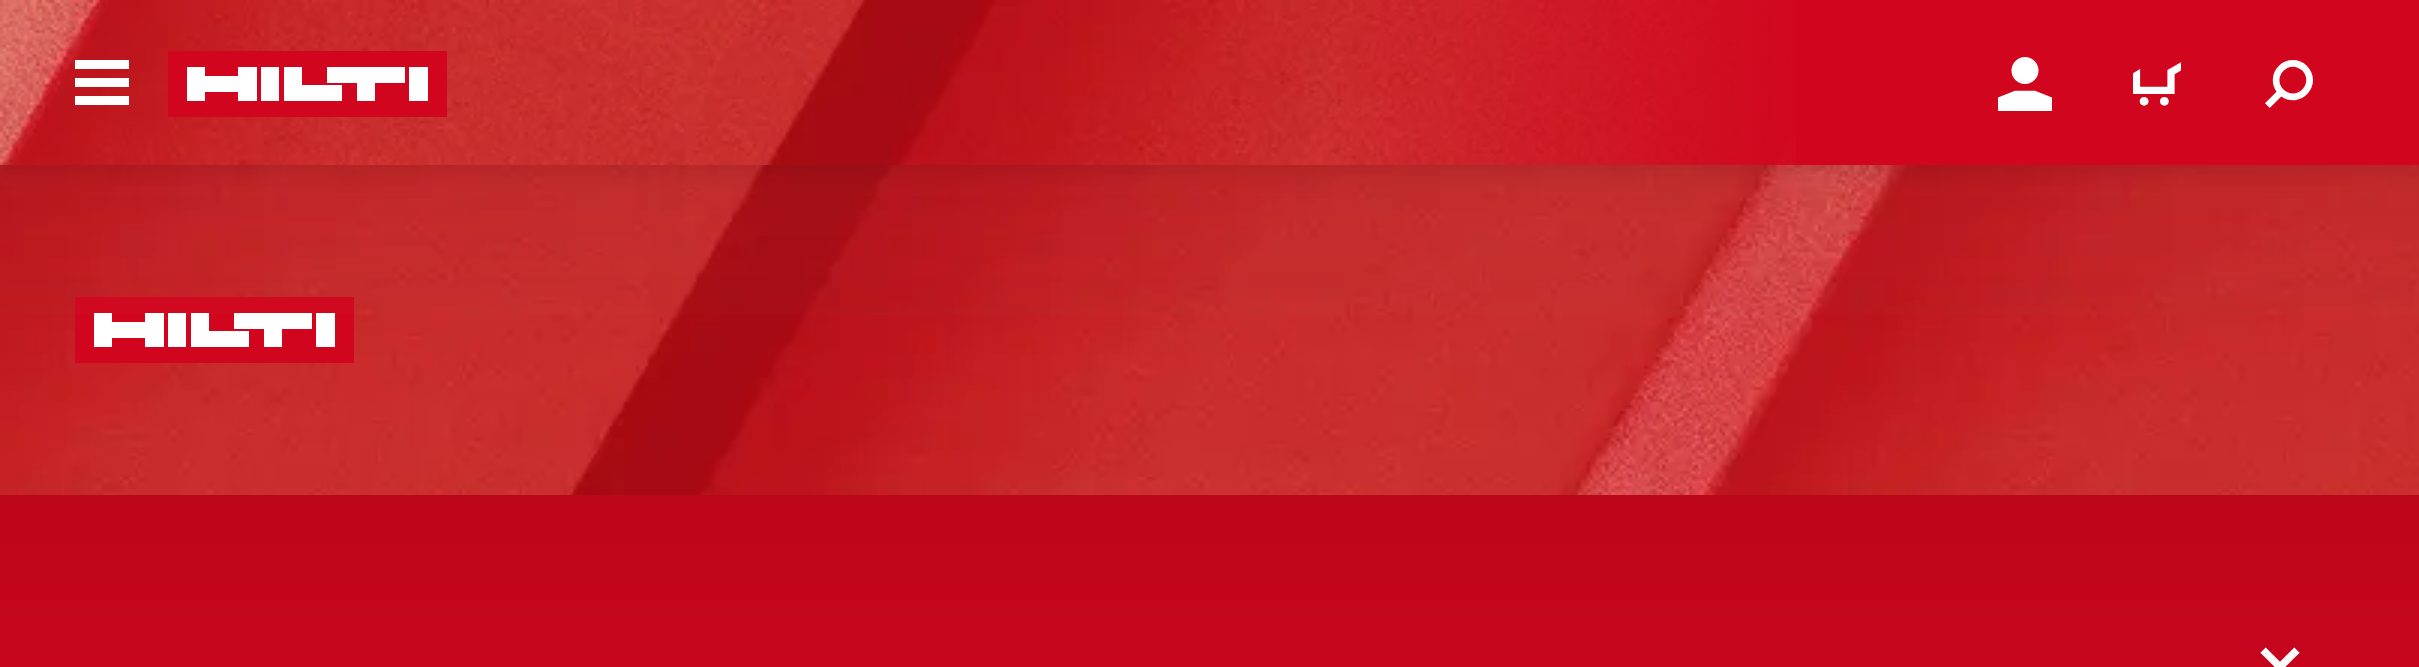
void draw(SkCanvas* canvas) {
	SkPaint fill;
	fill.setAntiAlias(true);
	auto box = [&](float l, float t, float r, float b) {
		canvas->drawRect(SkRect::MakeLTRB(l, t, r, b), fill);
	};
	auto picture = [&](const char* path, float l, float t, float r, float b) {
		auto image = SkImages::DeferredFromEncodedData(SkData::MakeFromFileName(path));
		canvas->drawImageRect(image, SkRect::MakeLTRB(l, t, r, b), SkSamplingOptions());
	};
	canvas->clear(0xFFFFFFFF);
	picture("image5.png", 0, 165, 2419, 495);
	fill.setColor(0xFFD2051E);
	box(75, 297, 354, 363);
	fill.setColor(0xFFFFFFFF);
	canvas->drawPath(SkPathBuilder().moveTo(186, 347).lineTo(168, 347).lineTo(168, 313).lineTo(186, 313).close().moveTo(335, 313).lineTo(316, 313).lineTo(316, 347).lineTo(335, 347).close().moveTo(94, 347).lineTo(112, 347).lineTo(112, 338).lineTo(145, 338).lineTo(145, 347).lineTo(164, 347).lineTo(164, 313).lineTo(145, 313).lineTo(145, 322).lineTo(112, 322).lineTo(112, 313).lineTo(94, 313).close().moveTo(191, 347).lineTo(249, 347).lineTo(249, 331).lineTo(209, 331).lineTo(209, 313).lineTo(191, 313).close().moveTo(234, 329).lineTo(264, 329).lineTo(264, 347).lineTo(282, 347).lineTo(282, 329).lineTo(312, 329).lineTo(312, 313).lineTo(234, 313).close().detach(), fill);
	{
		const SkColor colors[] = {0x0D7D7565, 0x007D7565};
		const float stops[] = {0, 1};
		const SkPoint ends[] = {{1211, 165}, {1211, 429}};
		fill.setShader(SkGradientShader::MakeLinear(ends, colors, stops, 2, SkTileMode::kClamp));
		fill.setAlpha(255);
	}
	box(0, 165, 2419, 315);
	fill.setShader(nullptr);
	fill.setColor(0x26000000);
	fill.setMaskFilter(SkMaskFilter::MakeBlur(kNormal_SkBlurStyle, 15));
	canvas->drawRect(SkRect::MakeLTRB(-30, -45, 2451, 165), fill);
	fill.setMaskFilter(nullptr);
	fill.setColor(0xFFD2051E);
	box(1796, 0, 2419, 165);
	picture("image0.png", 0, 0, 1796, 165);
	picture("image1.png", 75, 60, 129, 105);
	box(168, 51, 447, 117);
	fill.setColor(0xFFFFFFFF);
	canvas->drawPath(SkPathBuilder().moveTo(279, 101).lineTo(261, 101).lineTo(261, 67).lineTo(279, 67).close().moveTo(428, 67).lineTo(409, 67).lineTo(409, 101).lineTo(428, 101).close().moveTo(187, 101).lineTo(205, 101).lineTo(205, 92).lineTo(238, 92).lineTo(238, 101).lineTo(257, 101).lineTo(257, 67).lineTo(238, 67).lineTo(238, 76).lineTo(205, 76).lineTo(205, 67).lineTo(187, 67).close().moveTo(284, 101).lineTo(342, 101).lineTo(342, 85).lineTo(302, 85).lineTo(302, 67).lineTo(284, 67).close().moveTo(327, 83).lineTo(357, 83).lineTo(357, 101).lineTo(375, 101).lineTo(375, 83).lineTo(405, 83).lineTo(405, 67).lineTo(327, 67).close().detach(), fill);
	picture("image2.png", 1998, 57, 2052, 111);
	picture("image3.png", 2133, 62, 2181, 106);
	picture("image4.png", 2265, 60, 2313, 108);
	{
		const SkColor colors[] = {0xFFBD051C, 0xFFD2051E};
		const float stops[] = {0, 0.55f};
		const SkPoint ends[] = {{1211, 495}, {1211, 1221}};
		fill.setShader(SkGradientShader::MakeLinear(ends, colors, stops, 2, SkTileMode::kClamp));
		fill.setAlpha(255);
	}
	box(0, 495, 2419, 667);
	picture("image6.png", 2260, 647, 2300, 667);
}
